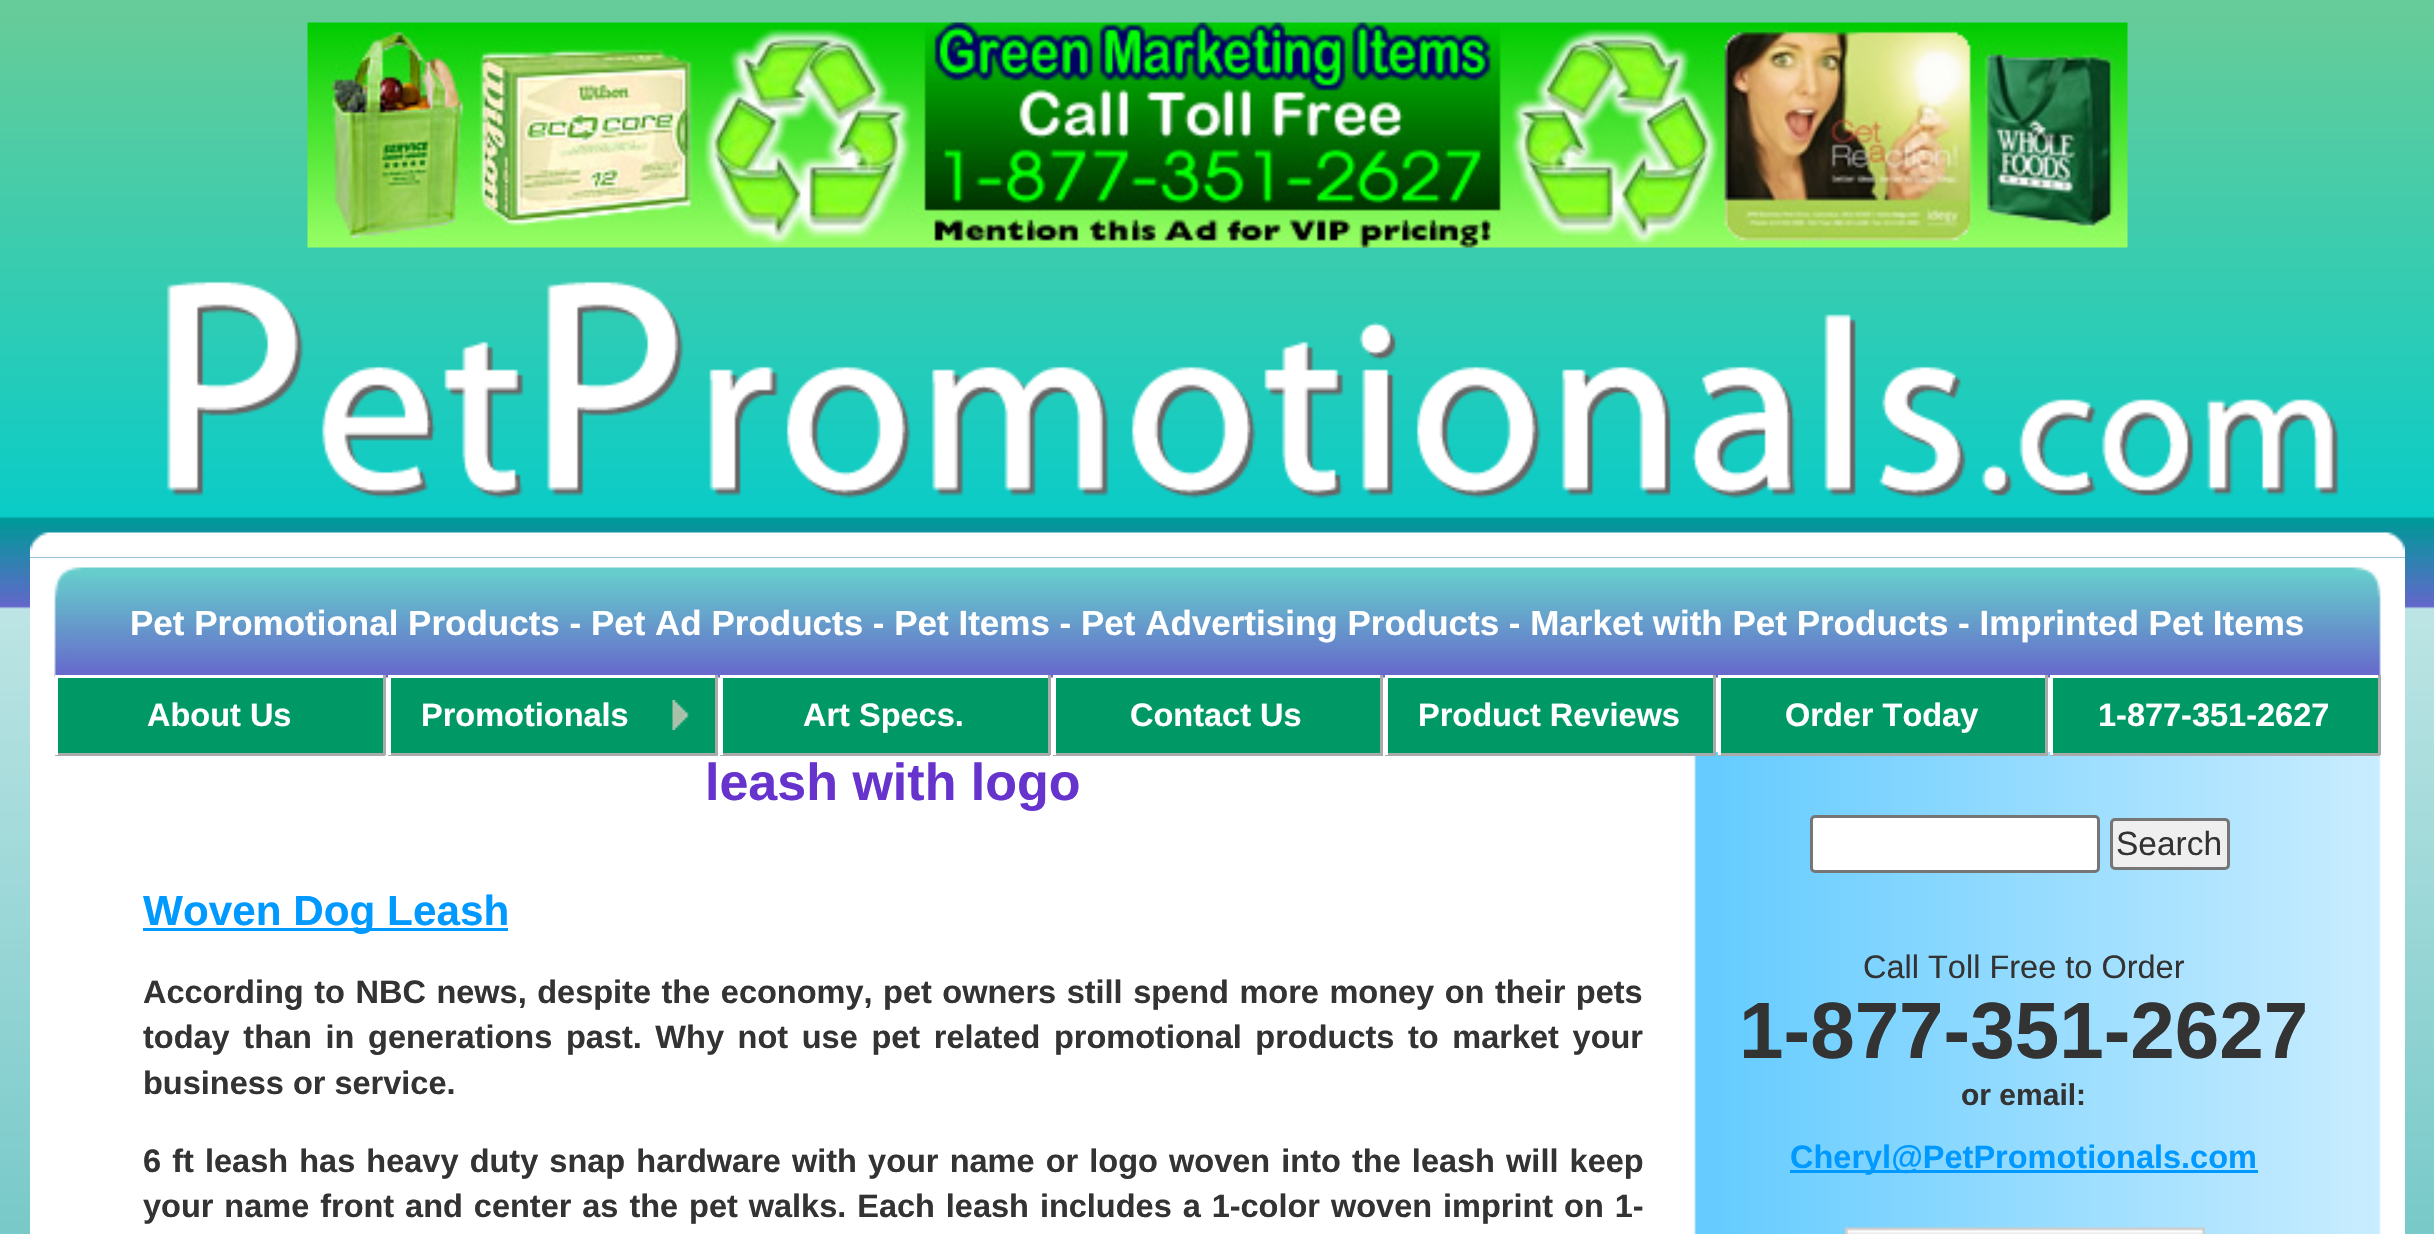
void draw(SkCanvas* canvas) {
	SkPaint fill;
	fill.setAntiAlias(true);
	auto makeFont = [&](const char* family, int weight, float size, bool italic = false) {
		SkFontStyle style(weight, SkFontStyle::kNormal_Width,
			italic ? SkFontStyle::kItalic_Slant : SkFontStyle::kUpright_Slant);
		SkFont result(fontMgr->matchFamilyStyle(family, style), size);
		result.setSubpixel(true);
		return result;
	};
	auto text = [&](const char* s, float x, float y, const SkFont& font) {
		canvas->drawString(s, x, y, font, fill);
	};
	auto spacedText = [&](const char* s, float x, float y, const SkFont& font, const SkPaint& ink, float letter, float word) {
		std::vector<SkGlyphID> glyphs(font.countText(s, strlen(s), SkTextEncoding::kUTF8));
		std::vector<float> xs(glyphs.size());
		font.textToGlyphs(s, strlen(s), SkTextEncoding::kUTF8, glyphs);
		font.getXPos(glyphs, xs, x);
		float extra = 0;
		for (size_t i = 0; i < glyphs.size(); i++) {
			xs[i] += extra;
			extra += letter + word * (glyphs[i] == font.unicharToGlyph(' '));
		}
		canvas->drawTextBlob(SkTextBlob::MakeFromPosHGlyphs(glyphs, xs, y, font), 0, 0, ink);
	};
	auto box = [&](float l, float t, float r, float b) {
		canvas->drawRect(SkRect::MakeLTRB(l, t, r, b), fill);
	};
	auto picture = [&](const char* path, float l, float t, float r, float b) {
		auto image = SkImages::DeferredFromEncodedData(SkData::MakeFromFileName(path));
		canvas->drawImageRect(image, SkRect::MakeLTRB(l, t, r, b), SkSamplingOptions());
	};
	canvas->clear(0xFFFFFFFF);
	picture("image0.png", 0, 0, 2434, 1234);
	picture("image1.png", 307, 22, 2128, 248);
	picture("image2.png", 30, 532, 2405, 558);
	fill.setColor(0xFFFFFFFF);
	box(30, 558, 2405, 1234);
	picture("image3.png", 54, 567, 2381, 678);
	picture("image4.png", 166, 281, 2339, 499);
	fill.setColor(0xFF009966);
	box(58, 678, 383, 753);
	fill.setColor(0xFFFFFFFF);
	box(55, 675, 385, 678);
	fill.setColor(0xFFAAAAAA);
	box(383, 675, 386, 755);
	box(55, 753, 385, 756);
	fill.setColor(0xFFFFFFFF);
	box(55, 753, 58, 755);
	fill.setColor(0xFF009966);
	box(391, 678, 715, 753);
	fill.setColor(0xFFFFFFFF);
	box(388, 675, 718, 678);
	fill.setColor(0xFFAAAAAA);
	box(715, 675, 718, 755);
	box(388, 753, 718, 756);
	fill.setColor(0xFFFFFFFF);
	box(388, 753, 391, 755);
	picture("image5.png", 672, 700, 689, 730);
	fill.setColor(0xFF009966);
	box(723, 678, 1048, 753);
	fill.setColor(0xFFFFFFFF);
	box(720, 675, 1050, 678);
	fill.setColor(0xFFAAAAAA);
	box(1048, 675, 1051, 755);
	box(720, 753, 1050, 756);
	fill.setColor(0xFFFFFFFF);
	box(720, 753, 723, 755);
	fill.setColor(0xFF009966);
	box(1056, 678, 1380, 753);
	fill.setColor(0xFFFFFFFF);
	box(1053, 675, 1383, 678);
	fill.setColor(0xFFAAAAAA);
	box(1380, 675, 1383, 755);
	box(1053, 753, 1383, 756);
	fill.setColor(0xFFFFFFFF);
	box(1053, 753, 1056, 755);
	picture("image6.png", 1716, 752, 2050, 753);
	picture("image7.png", 1694, 752, 2381, 1234);
	fill.setColor(0xFF009966);
	box(1388, 678, 1713, 753);
	fill.setColor(0xFFFFFFFF);
	box(1385, 675, 1715, 678);
	fill.setColor(0xFFAAAAAA);
	box(1713, 675, 1716, 755);
	box(1385, 753, 1715, 756);
	fill.setColor(0xFFFFFFFF);
	box(1385, 753, 1388, 755);
	fill.setColor(0xFF009966);
	box(1721, 678, 2045, 753);
	fill.setColor(0xFFFFFFFF);
	box(1718, 675, 2048, 678);
	fill.setColor(0xFFAAAAAA);
	box(2045, 675, 2048, 755);
	box(1718, 753, 2048, 756);
	fill.setColor(0xFFFFFFFF);
	box(1718, 752, 1721, 755);
	fill.setColor(0xFF009966);
	box(2053, 678, 2378, 753);
	fill.setColor(0xFFFFFFFF);
	box(2050, 675, 2380, 678);
	fill.setColor(0xFFAAAAAA);
	box(2378, 675, 2381, 755);
	box(2050, 753, 2380, 756);
	fill.setColor(0xFFFFFFFF);
	box(2050, 752, 2053, 755);
	fill.setColor(0xFF0099FF);
	box(143, 928, 508, 931);
	fill.setColor(0xFFFFFFFF);
	canvas->drawRoundRect(SkRect::MakeLTRB(1811.5f, 816.5f, 2098.5f, 871.5f), 3.5f, 3.5f, fill);
	fill.setStyle(SkPaint::kStroke_Style);
	fill.setStrokeWidth(3);
	fill.setColor(0xFF767676);
	canvas->drawRoundRect(SkRect::MakeLTRB(1811.5f, 816.5f, 2098.5f, 871.5f), 3.5f, 3.5f, fill);
	fill.setStyle(SkPaint::kFill_Style);
	fill.setColor(0xFFEFEFEF);
	canvas->drawRoundRect(SkRect::MakeLTRB(2111.5f, 819.5f, 2228.5f, 868.5f), 3.5f, 3.5f, fill);
	fill.setStyle(SkPaint::kStroke_Style);
	fill.setColor(0xFF767676);
	canvas->drawRoundRect(SkRect::MakeLTRB(2111.5f, 819.5f, 2228.5f, 868.5f), 3.5f, 3.5f, fill);
	fill.setStyle(SkPaint::kFill_Style);
	fill.setColor(0xFF0099FF);
	box(1790, 1170, 2258, 1173);
	picture("image8.png", 1845, 1227, 2205, 1234);
	auto font1 = makeFont("Liberation Sans", 700, 35);
	fill.setColor(0xFFFFFFFF);
	text("Pet Promotional Products - Pet Ad Products - Pet Items - Pet Advertising Products - Market with Pet Products - Imprinted Pet Items", 130, 635, font1);
	auto font2 = makeFont("Liberation Sans", 700, 32.5f);
	text("About Us", 147, 726, font2);
	text("Promotionals", 421, 726, font2);
	text("Art Specs.", 803, 726, font2);
	text("Contact Us", 1130, 726, font2);
	text("Product Reviews", 1418, 726, font2);
	text("Order Today", 1785, 726, font2);
	text("1-877-351-2627", 2098, 726, font2);
	auto font3 = makeFont("Liberation Sans", 700, 52);
	fill.setColor(0xFF6633CC);
	text("leash with logo", 705, 800, font3);
	auto font4 = makeFont("Liberation Sans", 700, 42.25f);
	fill.setColor(0xFF0099FF);
	text("Woven Dog Leash", 143, 925, font4);
	fill.setColor(0xFF333333);
	spacedText("According to NBC news, despite the economy, pet owners still spend more money on their pets", 143, 1003, font2, fill, 0, 1.5f);
	spacedText("today than in generations past. Why not use pet related promotional products to market your", 143, 1048, font2, fill, 0, 4.6f);
	text("business or service.", 143, 1094, font2);
	spacedText("6 ft leash has heavy duty snap hardware with your name or logo woven into the leash will keep", 143, 1172, font2, fill, 0, 2.1f);
	spacedText("your name front and center as the pet walks. Each leash includes a 1-color woven imprint on 1-", 143, 1217, font2, fill, 0, 1.9f);
	auto font5 = makeFont("Liberation Sans", 400, 33.5f);
	text("Search", 2116, 855, font5);
	auto font6 = makeFont("Liberation Sans", 400, 32.5f);
	text("Call Toll Free to Order", 1863, 978, font6);
	auto font7 = makeFont("Liberation Sans", 700, 80);
	text("1-877-351-2627", 1739, 1058, font7);
	auto font8 = makeFont("Liberation Sans", 700, 30);
	text("or email:", 1961, 1105, font8);
	fill.setColor(0xFF0099FF);
	text("Cheryl@PetPromotionals.com", 1790, 1168, font2);
}
